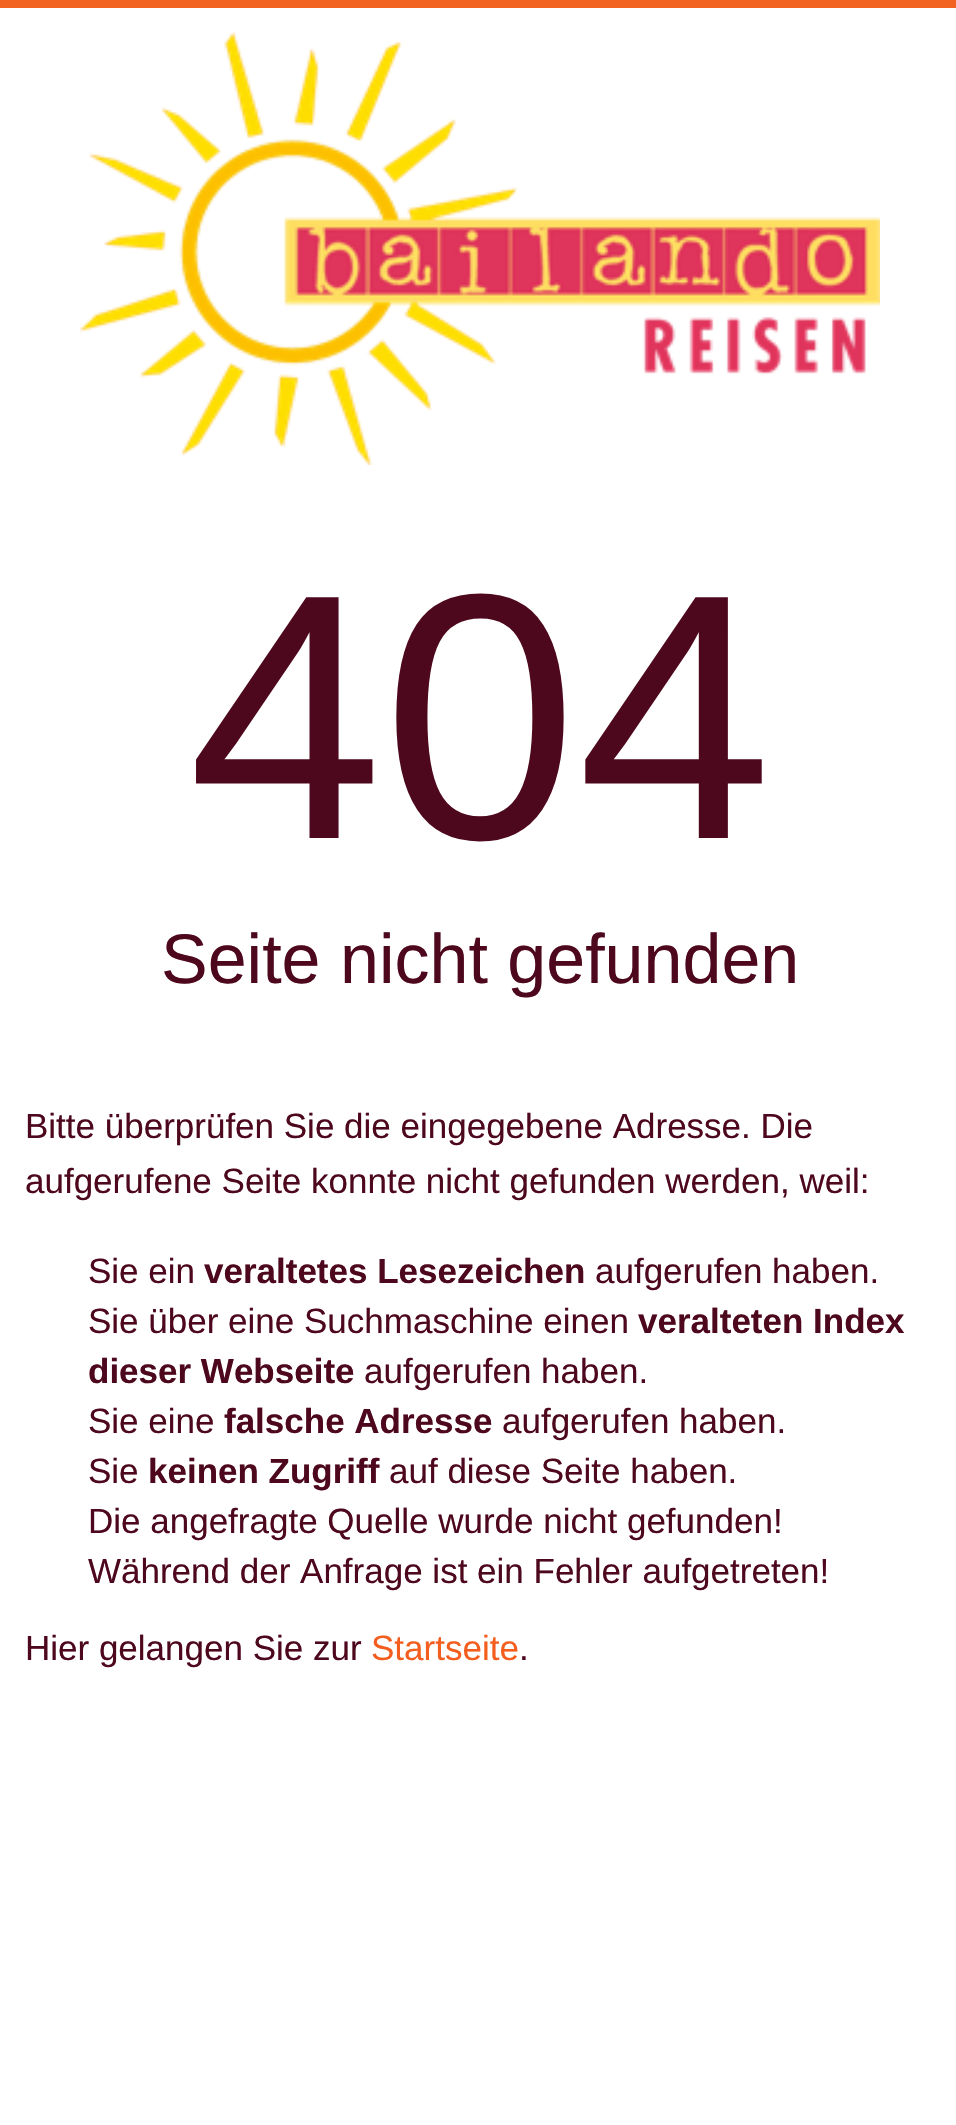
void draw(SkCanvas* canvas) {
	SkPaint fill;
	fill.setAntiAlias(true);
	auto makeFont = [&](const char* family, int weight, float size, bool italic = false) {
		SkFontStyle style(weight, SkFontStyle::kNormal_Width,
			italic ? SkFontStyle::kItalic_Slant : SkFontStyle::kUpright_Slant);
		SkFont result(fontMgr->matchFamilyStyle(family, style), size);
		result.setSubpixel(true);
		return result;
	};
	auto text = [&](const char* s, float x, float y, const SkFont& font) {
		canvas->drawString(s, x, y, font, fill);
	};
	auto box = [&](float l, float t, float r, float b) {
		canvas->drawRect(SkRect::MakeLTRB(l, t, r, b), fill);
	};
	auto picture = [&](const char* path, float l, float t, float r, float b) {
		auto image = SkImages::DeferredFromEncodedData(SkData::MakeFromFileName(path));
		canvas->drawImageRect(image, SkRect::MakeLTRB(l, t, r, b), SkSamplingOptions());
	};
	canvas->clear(0xFFFFFFFF);
	fill.setColor(0xFFF26321);
	box(0, 0, 956, 8);
	picture("image0.png", 80, 32, 880, 465);
	auto font1 = makeFont("Liberation Sans", 400, 350);
	fill.setColor(0xFF4E081D);
	text("404", 188, 838, font1);
	auto font2 = makeFont("Liberation Sans", 400, 70);
	text("Seite nicht gefunden", 161, 983, font2);
	auto font3 = makeFont("Liberation Sans", 400, 35);
	text("Bitte überprüfen Sie die eingegebene Adresse. Die", 25, 1138, font3);
	text("aufgerufene Seite konnte nicht gefunden werden, weil:", 25, 1193, font3);
	text("Sie ein", 88, 1283, font3);
	auto font4 = makeFont("Liberation Sans", 700, 35);
	text("veraltetes Lesezeichen", 204, 1283, font4);
	text("aufgerufen haben.", 595, 1283, font3);
	text("Sie über eine Suchmaschine einen", 88, 1333, font3);
	text("veralteten Index", 638, 1333, font4);
	text("dieser Webseite", 88, 1383, font4);
	text("aufgerufen haben.", 364, 1383, font3);
	text("Sie eine", 88, 1433, font3);
	text("falsche Adresse", 224, 1433, font4);
	text("aufgerufen haben.", 502, 1433, font3);
	text("Sie", 88, 1483, font3);
	text("keinen Zugriff", 148, 1483, font4);
	text("auf diese Seite haben.", 389, 1483, font3);
	text("Die angefragte Quelle wurde nicht gefunden!", 88, 1533, font3);
	text("Während der Anfrage ist ein Fehler aufgetreten!", 88, 1583, font3);
	text("Hier gelangen Sie zur", 25, 1660, font3);
	fill.setColor(0xFFF35E1F);
	text("Startseite", 371, 1660, font3);
	fill.setColor(0xFF4E081D);
	text(".", 519, 1660, font3);
}
